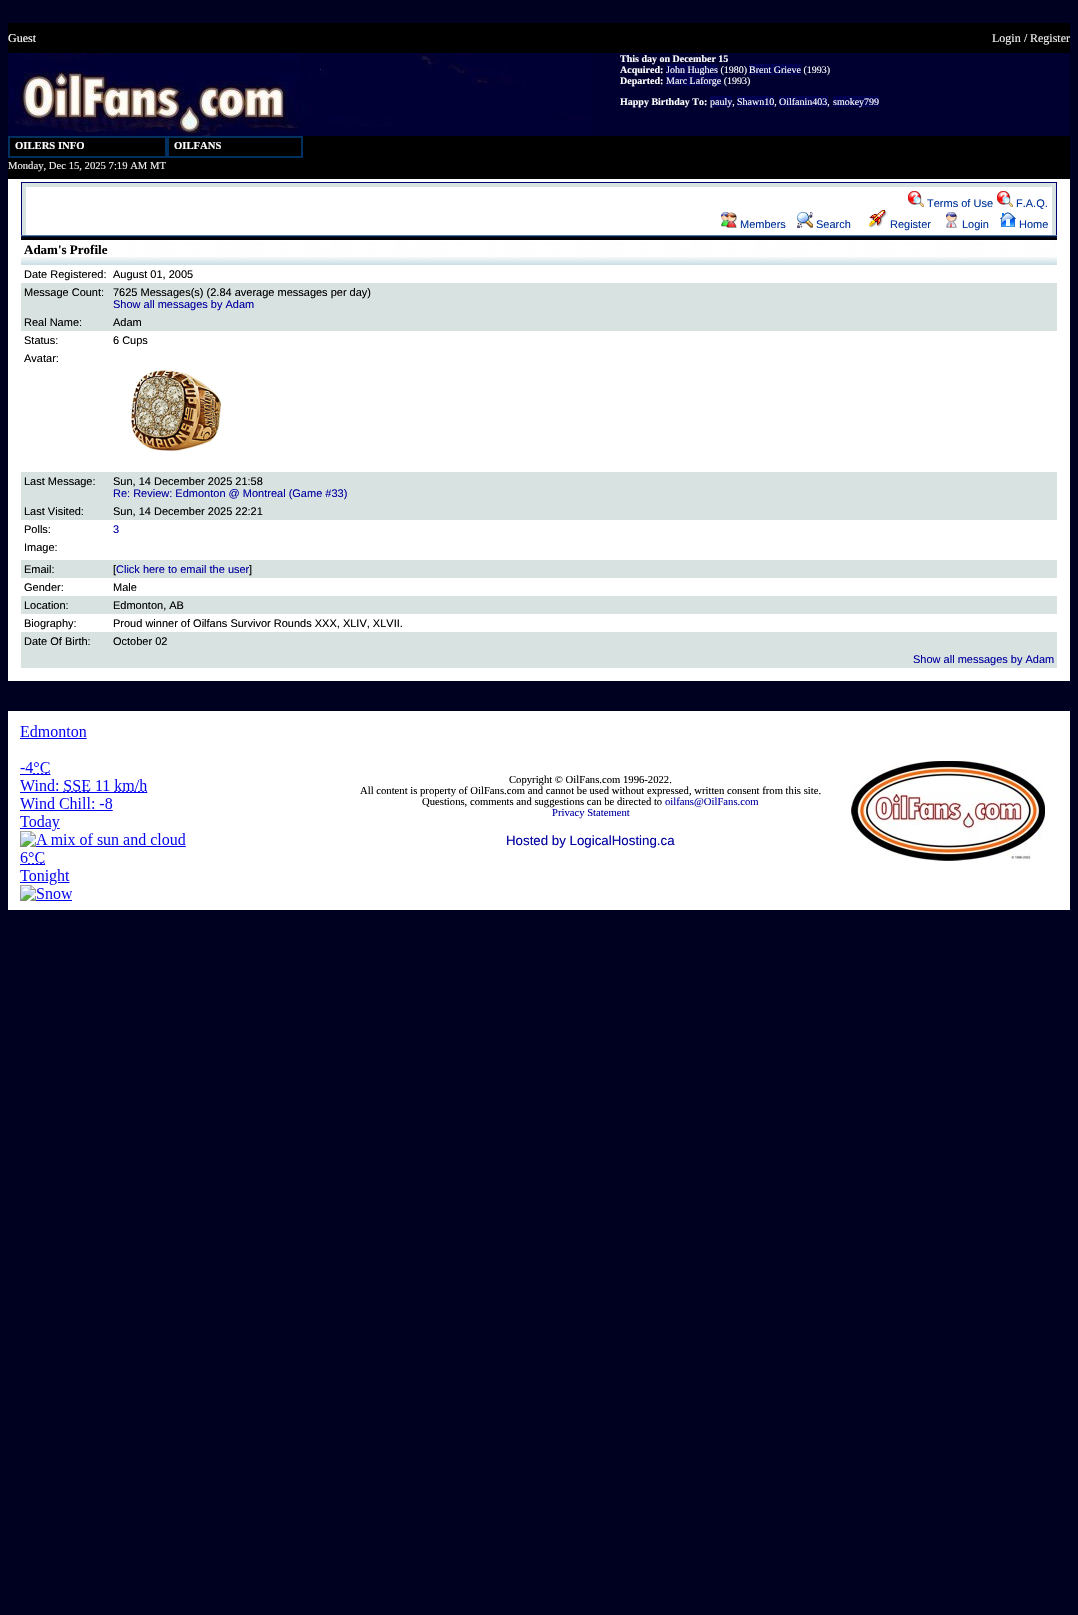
void draw(SkCanvas* canvas) {
	SkPaint fill;
	fill.setAntiAlias(true);
	auto makeFont = [&](const char* family, int weight, float size, bool italic = false) {
		SkFontStyle style(weight, SkFontStyle::kNormal_Width,
			italic ? SkFontStyle::kItalic_Slant : SkFontStyle::kUpright_Slant);
		SkFont result(fontMgr->matchFamilyStyle(family, style), size);
		result.setSubpixel(true);
		return result;
	};
	auto text = [&](const char* s, float x, float y, const SkFont& font) {
		canvas->drawString(s, x, y, font, fill);
	};
	auto box = [&](float l, float t, float r, float b) {
		canvas->drawRect(SkRect::MakeLTRB(l, t, r, b), fill);
	};
	auto picture = [&](const char* path, float l, float t, float r, float b) {
		auto image = SkImages::DeferredFromEncodedData(SkData::MakeFromFileName(path));
		canvas->drawImageRect(image, SkRect::MakeLTRB(l, t, r, b), SkSamplingOptions());
	};
	canvas->clear(0xFF000020);
	fill.setColor(0xFF000000);
	box(8, 23, 1070, 53);
	fill.setColor(0xFF000030);
	box(592, 53, 1070, 136);
	picture("image0.png", 338, 53, 592, 136);
	picture("image1.png", 8, 53, 338, 136);
	fill.setColor(0xFF000050);
	box(749, 64, 801, 75);
	box(710, 96, 732, 107);
	box(737, 96, 774, 107);
	box(779, 96, 828, 107);
	box(833, 96, 879, 107);
	fill.setColor(0xFF000000);
	box(8, 136, 1070, 179);
	fill.setStyle(SkPaint::kStroke_Style);
	fill.setStrokeWidth(2);
	fill.setColor(0xFF003060);
	canvas->drawRect(SkRect::MakeLTRB(9, 137, 166, 157), fill);
	canvas->drawRect(SkRect::MakeLTRB(168, 137, 302, 157), fill);
	fill.setStyle(SkPaint::kFill_Style);
	fill.setColor(0xFFFFFFFF);
	box(8, 179, 1070, 681);
	fill.setColor(0xFF000070);
	box(21, 182, 1057, 183);
	box(1056, 182, 1057, 235);
	box(21, 182, 22, 235);
	fill.setColor(0xFFD8E2E0);
	box(22, 183, 1056, 187);
	box(1052, 183, 1056, 235);
	box(22, 183, 26, 235);
	picture("image2.png", 908, 191, 924, 207);
	picture("image2.png", 997, 191, 1013, 207);
	picture("image3.png", 721, 212, 737, 228);
	picture("image4.png", 797, 212, 813, 228);
	picture("image5.png", 869, 210, 887, 228);
	picture("image6.png", 946, 212, 958, 228);
	picture("image7.png", 1000, 212, 1016, 227);
	picture("image8.png", 21, 235, 1057, 265);
	box(21, 283, 1057, 331);
	picture("image9.png", 131, 370, 222, 452);
	box(21, 472, 1057, 520);
	box(21, 560, 1057, 578);
	box(21, 596, 1057, 614);
	box(21, 632, 1057, 668);
	fill.setColor(0xFFFFFFFF);
	box(8, 711, 1070, 910);
	picture("image10.png", 20, 725, 186, 901);
	picture("image11.png", 851, 761, 1045, 861);
	auto font1 = makeFont("Liberation Serif", 400, 12);
	text("Guest", 8, 42, font1);
	fill.setColor(0xFFF0F0F0);
	text("Login", 992, 42, font1);
	fill.setColor(0xFFFFFFFF);
	text("/", 1024, 42, font1);
	fill.setColor(0xFFF0F0F0);
	text("Register", 1030, 42, font1);
	auto font2 = makeFont("Liberation Serif", 700, 10);
	fill.setColor(0xFFFFFFFF);
	text("This day on December 15", 620, 62, font2);
	text("Acquired:", 620, 73, font2);
	fill.setColor(0xFF000050);
	box(666, 64, 718, 75);
	auto font3 = makeFont("Liberation Serif", 400, 10);
	fill.setColor(0xFFFFFFFF);
	text("John Hughes (1980)", 666, 73, font3);
	text("Brent Grieve (1993)", 749, 73, font3);
	text("Departed:", 620, 84, font2);
	fill.setColor(0xFF000050);
	box(666, 75, 721, 86);
	fill.setColor(0xFFFFFFFF);
	text("Marc Laforge (1993)", 666, 84, font3);
	text("Happy Birthday To:", 620, 105, font2);
	text("pauly,", 710, 105, font3);
	text("Shawn10,", 737, 105, font3);
	text("Oilfanin403,", 779, 105, font3);
	text("smokey799", 833, 105, font3);
	auto font4 = makeFont("Liberation Serif", 700, 10.65f);
	text("OILERS INFO", 15, 149, font4);
	text("OILFANS", 174, 149, font4);
	auto font5 = makeFont("Liberation Serif", 400, 10.65f);
	fill.setColor(0xFFF0F0F0);
	text("Monday, Dec 15, 2025 7:19 AM MT", 8, 169, font5);
	auto font6 = makeFont("Liberation Sans", 400, 11);
	fill.setColor(0xFF003399);
	text("Terms of Use", 927, 207, font6);
	text("F.A.Q.", 1016, 207, font6);
	text("Members", 740, 228, font6);
	text("Search", 816, 228, font6);
	text("Register", 890, 228, font6);
	text("Login", 962, 228, font6);
	text("Home", 1019, 228, font6);
	auto font7 = makeFont("Liberation Serif", 700, 13);
	fill.setColor(0xFF000000);
	text("Adam's Profile", 24, 254, font7);
	text("Date Registered:", 24, 278, font6);
	text("August 01, 2005", 113, 278, font6);
	text("Message Count:", 24, 296, font6);
	text("7625 Messages(s) (2.84 average messages per day)", 113, 296, font6);
	fill.setColor(0xFF0000A0);
	text("Show all messages by Adam", 113, 308, font6);
	fill.setColor(0xFF000000);
	text("Real Name:", 24, 326, font6);
	text("Adam", 113, 326, font6);
	text("Status:", 24, 344, font6);
	text("6 Cups", 113, 344, font6);
	text("Avatar:", 24, 362, font6);
	text("Last Message:", 24, 485, font6);
	text("Sun, 14 December 2025 21:58", 113, 485, font6);
	fill.setColor(0xFF0000A0);
	text("Re: Review: Edmonton @ Montreal (Game #33)", 113, 497, font6);
	fill.setColor(0xFF000000);
	text("Last Visited:", 24, 515, font6);
	text("Sun, 14 December 2025 22:21", 113, 515, font6);
	text("Polls:", 24, 533, font6);
	fill.setColor(0xFF0000A0);
	text("3", 113, 533, font6);
	fill.setColor(0xFF000000);
	text("Image:", 24, 551, font6);
	text("Email:", 24, 573, font6);
	text("[", 113, 573, font6);
	fill.setColor(0xFF0000A0);
	text("Click here to email the user", 116, 573, font6);
	fill.setColor(0xFF000000);
	text("]", 249, 573, font6);
	text("Gender:", 24, 591, font6);
	text("Male", 113, 591, font6);
	text("Location:", 24, 609, font6);
	text("Edmonton, AB", 113, 609, font6);
	text("Biography:", 24, 627, font6);
	text("Proud winner of Oilfans Survivor Rounds XXX, XLIV, XLVII.", 113, 627, font6);
	text("Date Of Birth:", 24, 645, font6);
	text("October 02", 113, 645, font6);
	fill.setColor(0xFF0000A0);
	text("Show all messages by Adam", 913, 663, font6);
	fill.setColor(0xFF000000);
	text("Copyright © OilFans.com 1996-2022.", 509, 783, font5);
	text("All content is property of OilFans.com and cannot be used without expressed, written consent from this site.", 360, 794, font5);
	text("Questions, comments and suggestions can be directed to", 422, 805, font5);
	fill.setColor(0xFF0000A0);
	text("oilfans@OilFans.com", 665, 805, font5);
	text("Privacy Statement", 552, 816, font5);
	auto font8 = makeFont("Liberation Sans", 400, 13.3f);
	text("Hosted by LogicalHosting.ca", 506, 845, font8);
}
